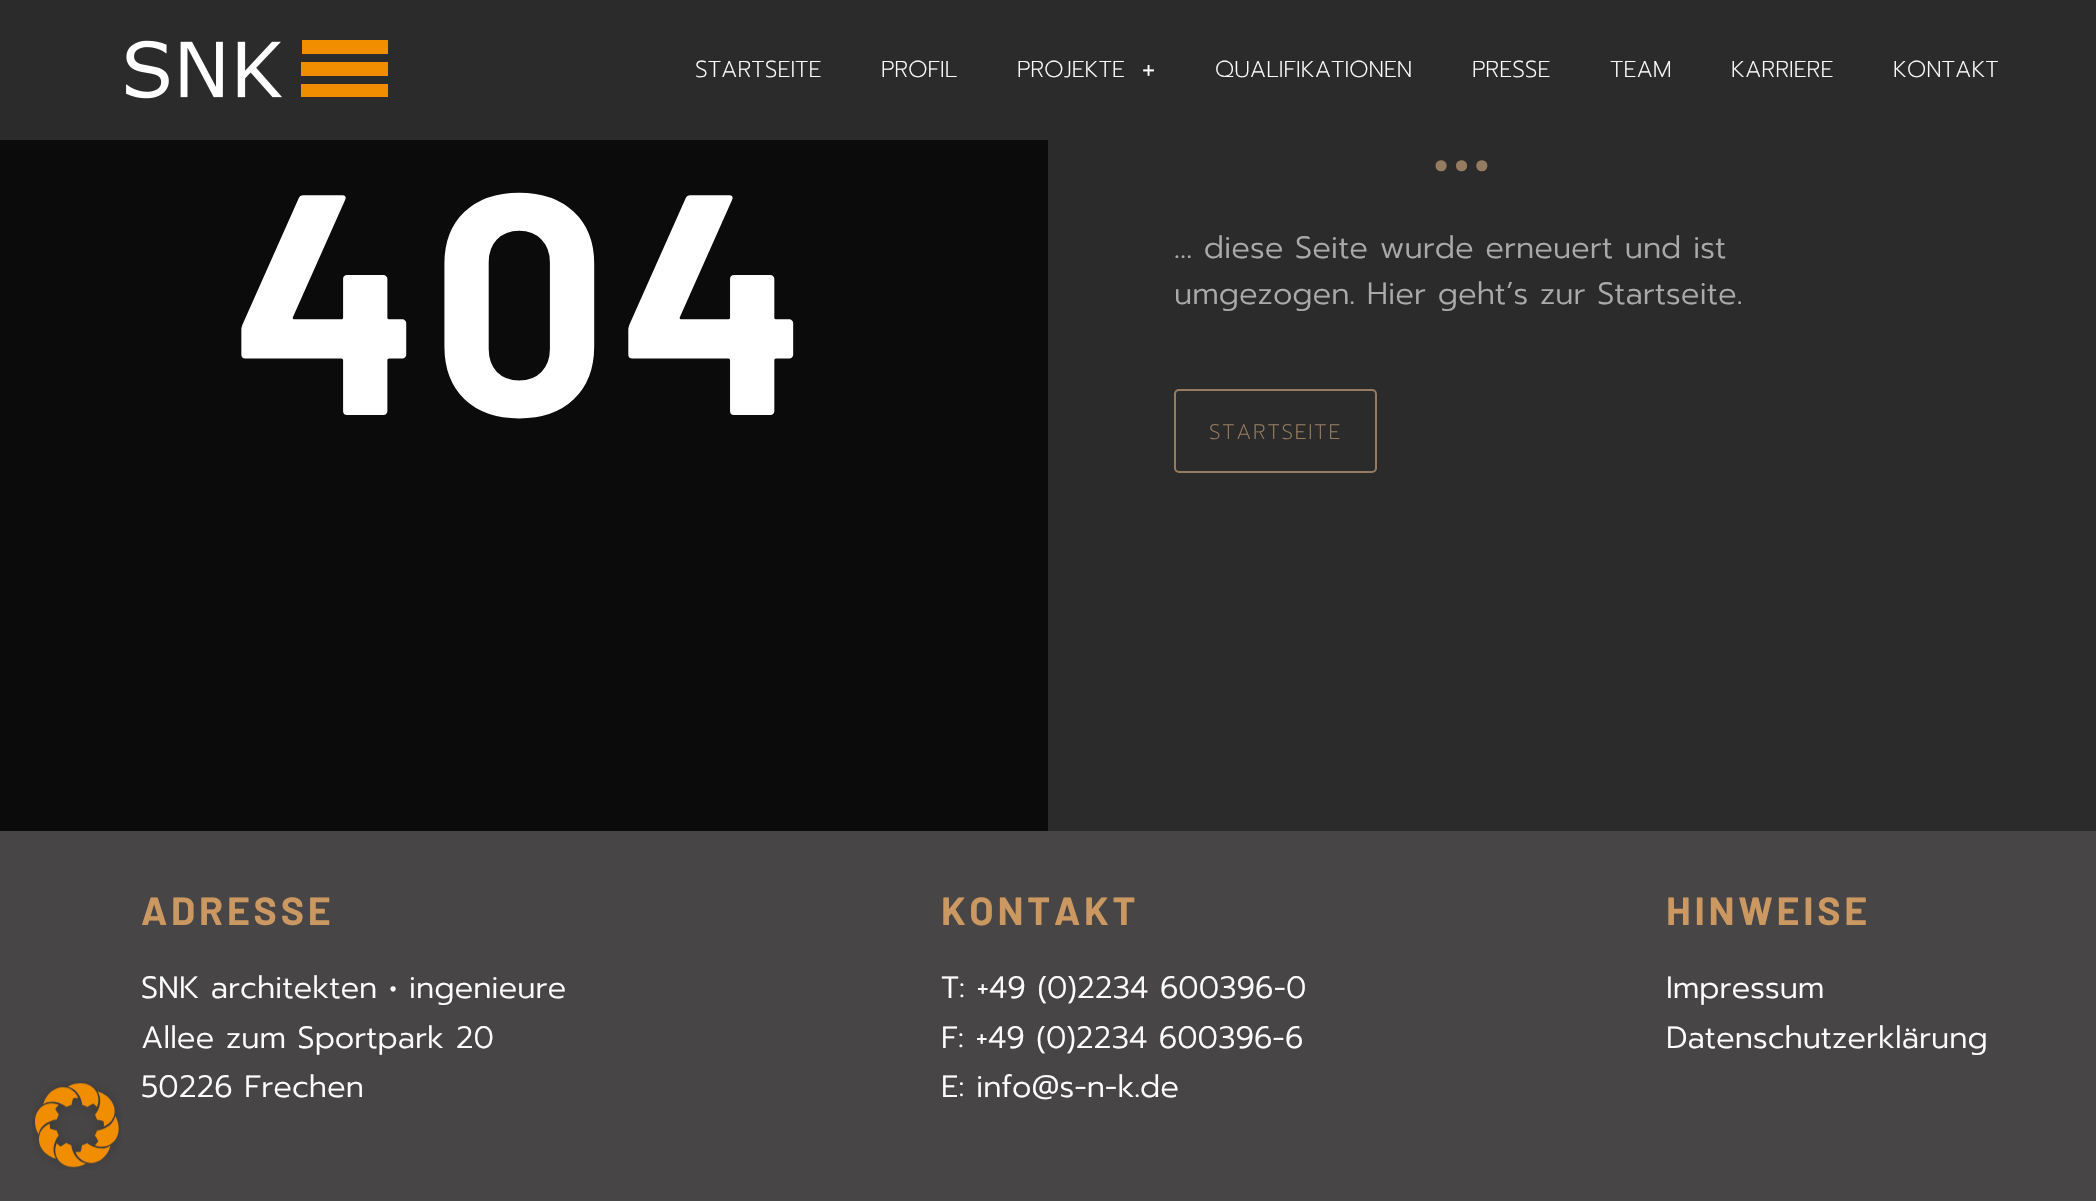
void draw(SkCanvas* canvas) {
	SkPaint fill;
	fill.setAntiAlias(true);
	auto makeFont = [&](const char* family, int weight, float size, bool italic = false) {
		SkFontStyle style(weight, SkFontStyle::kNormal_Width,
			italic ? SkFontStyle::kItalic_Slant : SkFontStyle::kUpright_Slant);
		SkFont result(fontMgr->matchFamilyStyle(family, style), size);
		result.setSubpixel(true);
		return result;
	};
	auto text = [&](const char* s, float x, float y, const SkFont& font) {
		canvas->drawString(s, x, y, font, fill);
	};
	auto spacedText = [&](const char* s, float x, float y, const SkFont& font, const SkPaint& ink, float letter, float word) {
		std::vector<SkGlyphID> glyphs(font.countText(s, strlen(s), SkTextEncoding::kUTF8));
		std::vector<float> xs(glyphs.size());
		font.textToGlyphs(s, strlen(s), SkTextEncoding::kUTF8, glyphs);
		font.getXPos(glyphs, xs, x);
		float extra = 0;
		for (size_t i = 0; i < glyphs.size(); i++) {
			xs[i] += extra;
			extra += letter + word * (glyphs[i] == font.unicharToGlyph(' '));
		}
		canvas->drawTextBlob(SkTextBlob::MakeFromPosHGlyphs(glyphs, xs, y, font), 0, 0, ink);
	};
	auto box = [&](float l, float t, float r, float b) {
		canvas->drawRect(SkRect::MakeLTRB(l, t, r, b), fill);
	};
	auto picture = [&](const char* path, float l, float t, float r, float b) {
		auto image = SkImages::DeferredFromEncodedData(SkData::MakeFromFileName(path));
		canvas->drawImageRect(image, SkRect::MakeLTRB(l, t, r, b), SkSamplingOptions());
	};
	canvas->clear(0xFF2B2B2B);
	picture("image0.png", 126, 40, 388, 99);
	fill.setColor(0xFF0B0B0B);
	box(0, 140, 1048, 831);
	fill.setStyle(SkPaint::kStroke_Style);
	fill.setStrokeWidth(2);
	fill.setColor(0xFF957B5F);
	canvas->drawRoundRect(SkRect::MakeLTRB(1175, 390, 1376, 472), 4, 4, fill);
	fill.setStyle(SkPaint::kFill_Style);
	fill.setColor(0xFF474545);
	box(0, 831, 2096, 1201);
	picture("image1.png", 32, 1081, 121, 1169);
	auto font1 = makeFont("Prompt", 200, 23);
	fill.setColor(0xFFFFFFFF);
	text("STARTSEITE", 695, 77, font1);
	text("PROFIL", 881, 77, font1);
	text("PROJEKTE", 1017, 77, font1);
	auto font2 = makeFont("Liberation Serif", 700, 23);
	text("+", 1142, 78, font2);
	text("QUALIFIKATIONEN", 1215, 77, font1);
	text("PRESSE", 1472, 77, font1);
	text("TEAM", 1610, 77, font1);
	text("KARRIERE", 1731, 77, font1);
	text("KONTAKT", 1893, 77, font1);
	auto font3 = makeFont("Barlow", 700, 314);
	spacedText("404", 231, 415, font3, fill, 9, 0);
	auto font4 = makeFont("Barlow", 700, 70);
	fill.setColor(0xFF957B5F);
	spacedText("…", 1432, 171, font4, fill, 9, 0);
	auto font5 = makeFont("Prompt", 300, 30.75f);
	fill.setColor(0xFFAAAAAA);
	text("… diese Seite wurde erneuert und ist", 1174, 258, font5);
	text("umgezogen. Hier geht’s zur Startseite.", 1174, 304, font5);
	auto font6 = makeFont("Prompt", 200, 21);
	fill.setColor(0xFF957B5F);
	spacedText("STARTSEITE", 1209, 439, font6, fill, 1.75f, 0);
	auto font7 = makeFont("Barlow", 700, 39.25f);
	fill.setColor(0xFFCB9862);
	spacedText("ADRESSE", 141, 925, font7, fill, 3.75f, 0);
	fill.setColor(0xFFFFFFFF);
	text("SNK architekten • ingenieure", 141, 998, font5);
	text("Allee zum Sportpark 20", 141, 1048, font5);
	text("50226 Frechen", 141, 1097, font5);
	fill.setColor(0xFFCB9862);
	spacedText("KONTAKT", 941, 925, font7, fill, 3.75f, 0);
	fill.setColor(0xFFFFFFFF);
	text("T: +49 (0)2234 600396-0", 941, 998, font5);
	text("F: +49 (0)2234 600396-6", 941, 1048, font5);
	text("E: info@s-n-k.de", 941, 1097, font5);
	fill.setColor(0xFFCB9862);
	spacedText("HINWEISE", 1666, 925, font7, fill, 3.75f, 0);
	fill.setColor(0xFFFFFFFF);
	text("Impressum", 1666, 998, font5);
	text("Datenschutzerklärung", 1666, 1048, font5);
}
